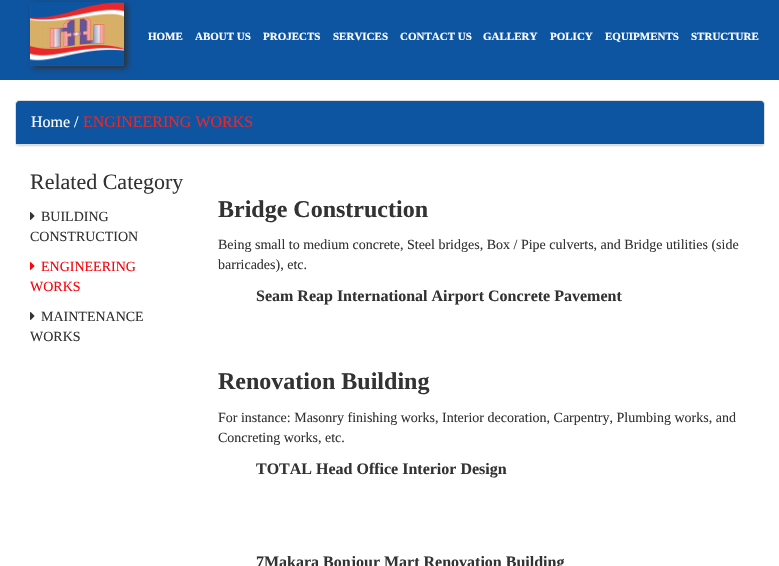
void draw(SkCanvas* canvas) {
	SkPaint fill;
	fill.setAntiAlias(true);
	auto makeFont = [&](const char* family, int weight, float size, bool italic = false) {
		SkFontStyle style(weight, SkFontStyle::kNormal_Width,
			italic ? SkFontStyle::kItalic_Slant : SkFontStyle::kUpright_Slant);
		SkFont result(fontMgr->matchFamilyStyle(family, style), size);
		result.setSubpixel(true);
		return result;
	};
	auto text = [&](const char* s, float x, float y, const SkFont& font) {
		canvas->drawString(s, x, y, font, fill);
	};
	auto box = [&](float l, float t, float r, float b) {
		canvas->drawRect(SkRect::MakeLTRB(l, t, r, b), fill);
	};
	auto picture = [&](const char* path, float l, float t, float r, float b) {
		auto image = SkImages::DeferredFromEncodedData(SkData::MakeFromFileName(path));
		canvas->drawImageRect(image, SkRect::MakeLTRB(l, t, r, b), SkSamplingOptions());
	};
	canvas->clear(0xFFFFFFFF);
	fill.setColor(0xFF0D54A1);
	box(0, 0, 779, 80);
	fill.setColor(0xFF303030);
	fill.setMaskFilter(SkMaskFilter::MakeBlur(kNormal_SkBlurStyle, 3));
	canvas->drawRect(SkRect::MakeLTRB(33, 4, 127, 68), fill);
	fill.setMaskFilter(nullptr);
	picture("image0.png", 30, 2, 124, 66);
	fill.setColor(0x0D000000);
	fill.setMaskFilter(SkMaskFilter::MakeBlur(kNormal_SkBlurStyle, 0.5f));
	canvas->drawRoundRect(SkRect::MakeLTRB(15, 101, 765, 147), 4, 4, fill);
	fill.setMaskFilter(nullptr);
	fill.setStyle(SkPaint::kStroke_Style);
	fill.setStrokeWidth(1);
	fill.setColor(0xFFDDDDDD);
	canvas->drawRoundRect(SkRect::MakeLTRB(15.5f, 100.5f, 764.5f, 145.5f), 3.5f, 3.5f, fill);
	fill.setStyle(SkPaint::kFill_Style);
	fill.setColor(0xFF0D54A1);
	canvas->drawPath(SkPathBuilder().moveTo(19, 101).lineTo(761, 101).cubicTo(762.5f, 101, 764, 102.5f, 764, 104).lineTo(764, 145).lineTo(16, 145).lineTo(16, 104).cubicTo(16, 102.5f, 17.5f, 101, 19, 101).close().detach(), fill);
	fill.setColor(0xFFDDDDDD);
	box(16, 144, 764, 145);
	picture("image1.png", 30, 212, 35, 220);
	picture("image2.png", 30, 262, 35, 270);
	picture("image1.png", 30, 312, 35, 320);
	auto font1 = makeFont("Liberation Serif", 700, 11);
	fill.setColor(0xFFFFFFFF);
	text("HOME", 148, 40, font1);
	text("ABOUT US", 195, 40, font1);
	text("PROJECTS", 263, 40, font1);
	text("SERVICES", 333, 40, font1);
	text("CONTACT US", 400, 40, font1);
	text("GALLERY", 483, 40, font1);
	text("POLICY", 550, 40, font1);
	text("EQUIPMENTS", 605, 40, font1);
	text("STRUCTURE", 691, 40, font1);
	auto font2 = makeFont("Liberation Serif", 400, 16);
	text("Home /", 31, 127, font2);
	fill.setColor(0xFFE6282B);
	text("ENGINEERING WORKS", 83, 127, font2);
	auto font3 = makeFont("Liberation Serif", 400, 22);
	fill.setColor(0xFF333333);
	text("Related Category", 30, 189, font3);
	auto font4 = makeFont("Liberation Serif", 400, 14);
	text("BUILDING", 41, 221, font4);
	text("CONSTRUCTION", 30, 241, font4);
	fill.setColor(0xFFF9060F);
	text("ENGINEERING", 41, 271, font4);
	text("WORKS", 30, 291, font4);
	fill.setColor(0xFF333333);
	text("MAINTENANCE", 41, 321, font4);
	text("WORKS", 30, 341, font4);
	auto font5 = makeFont("Liberation Serif", 700, 24);
	text("Bridge Construction", 218, 217, font5);
	text("Being small to medium concrete, Steel bridges, Box / Pipe culverts, and Bridge utilities (side", 218, 249, font4);
	text("barricades), etc.", 218, 269, font4);
	auto font6 = makeFont("Liberation Serif", 700, 16);
	text("Seam Reap International Airport Concrete Pavement", 256, 301, font6);
	text("Renovation Building", 218, 389, font5);
	text("For instance: Masonry finishing works, Interior decoration, Carpentry, Plumbing works, and", 218, 422, font4);
	text("Concreting works, etc.", 218, 442, font4);
	text("TOTAL Head Office Interior Design", 256, 474, font6);
	text("7Makara Bonjour Mart Renovation Building", 256, 567, font6);
}
